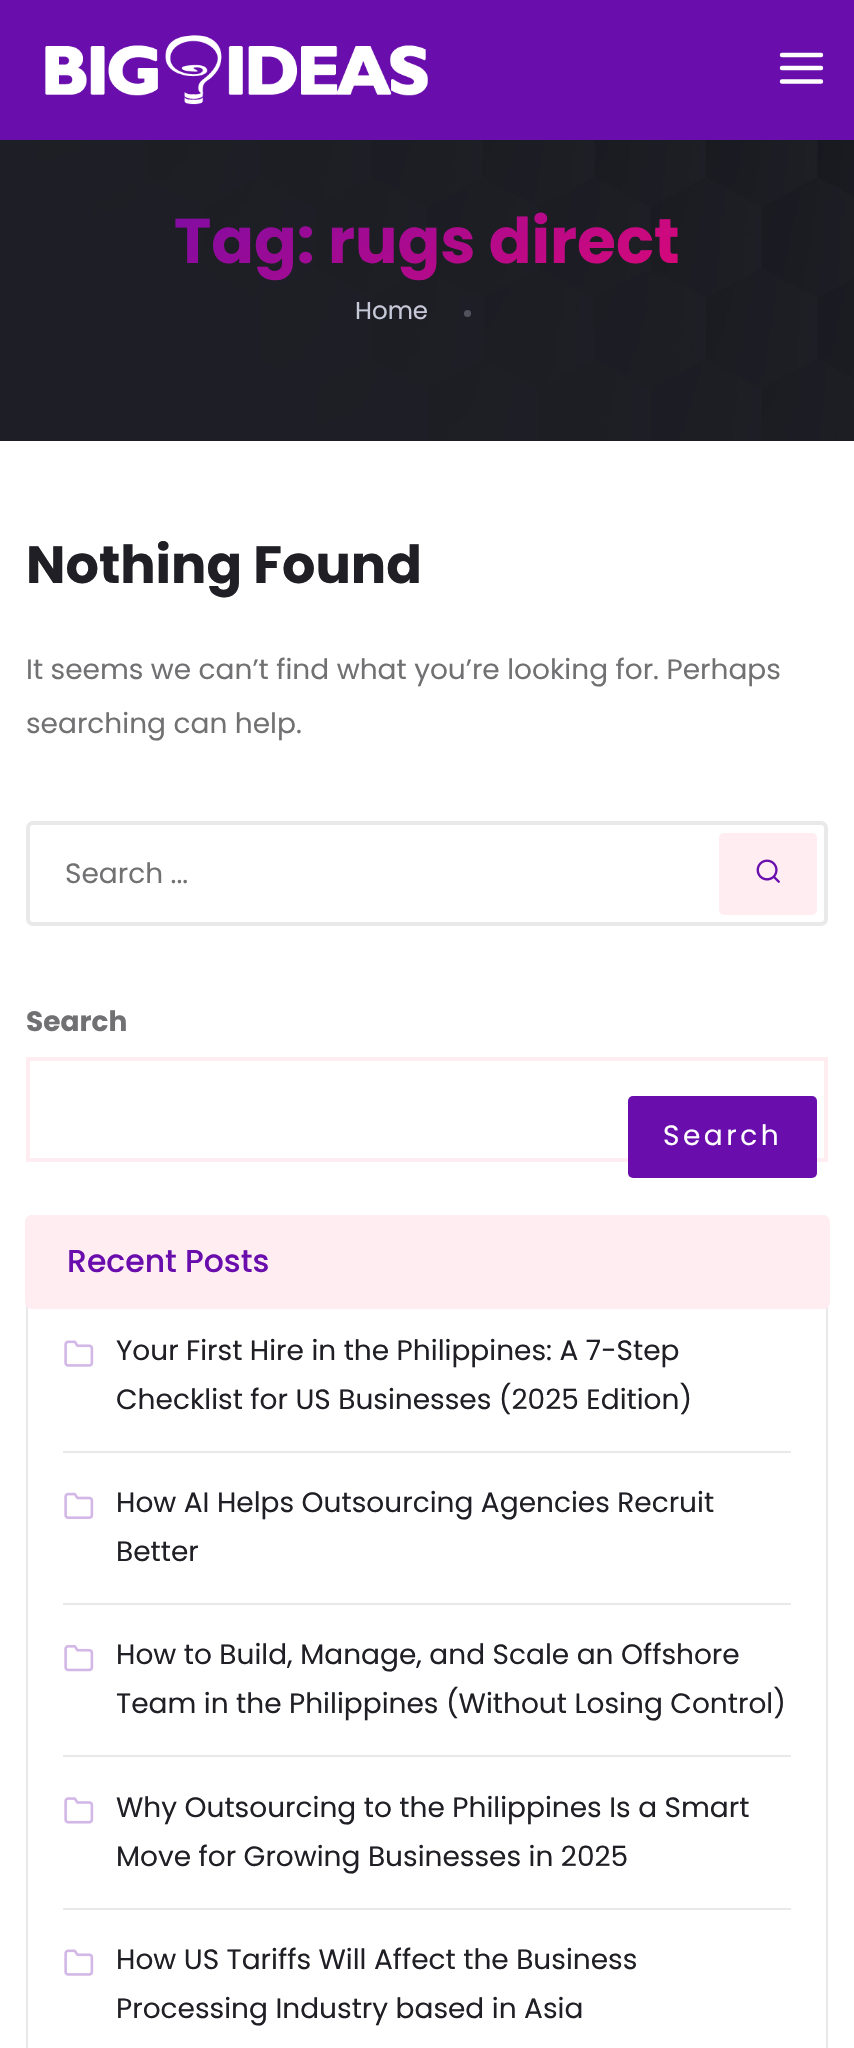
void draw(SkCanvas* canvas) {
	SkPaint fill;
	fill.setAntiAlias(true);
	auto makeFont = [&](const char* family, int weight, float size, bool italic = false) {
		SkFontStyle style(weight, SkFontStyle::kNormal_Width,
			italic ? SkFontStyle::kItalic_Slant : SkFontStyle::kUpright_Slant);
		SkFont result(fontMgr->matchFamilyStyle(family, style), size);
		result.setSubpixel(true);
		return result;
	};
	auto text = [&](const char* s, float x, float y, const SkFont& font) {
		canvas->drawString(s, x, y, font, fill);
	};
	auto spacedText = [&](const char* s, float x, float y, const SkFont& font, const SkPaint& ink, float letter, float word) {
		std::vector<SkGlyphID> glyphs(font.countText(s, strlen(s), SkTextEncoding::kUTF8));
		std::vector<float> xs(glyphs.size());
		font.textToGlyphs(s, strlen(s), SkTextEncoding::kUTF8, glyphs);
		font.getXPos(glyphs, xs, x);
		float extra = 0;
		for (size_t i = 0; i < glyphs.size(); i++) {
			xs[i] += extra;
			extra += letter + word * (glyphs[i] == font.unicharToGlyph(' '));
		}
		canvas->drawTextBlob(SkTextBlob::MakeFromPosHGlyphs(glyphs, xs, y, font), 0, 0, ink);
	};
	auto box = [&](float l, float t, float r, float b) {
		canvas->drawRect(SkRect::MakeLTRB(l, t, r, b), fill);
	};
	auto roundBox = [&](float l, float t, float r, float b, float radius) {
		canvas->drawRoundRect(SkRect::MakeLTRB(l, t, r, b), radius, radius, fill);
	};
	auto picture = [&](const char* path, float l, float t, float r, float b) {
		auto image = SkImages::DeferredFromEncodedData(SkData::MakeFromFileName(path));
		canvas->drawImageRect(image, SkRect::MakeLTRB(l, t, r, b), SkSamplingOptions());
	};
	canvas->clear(0xFFFFFFFF);
	fill.setColor(0xFF6A0DAD);
	box(0, 0, 854, 140);
	picture("image0.png", 45, 35, 428, 105);
	fill.setStyle(SkPaint::kStroke_Style);
	fill.setStrokeWidth(4.4f);
	fill.setStrokeCap(SkPaint::kRound_Cap);
	fill.setStrokeJoin(SkPaint::kRound_Join);
	fill.setColor(0xFFFFFFFF);
	canvas->drawPath(SkPathBuilder().moveTo(782, 68).lineTo(821, 68).moveTo(782, 55).lineTo(821, 55).moveTo(782, 81.5f).lineTo(821, 81.5f).detach(), fill);
	picture("image1.png", 0, 140, 854, 441);
	fill.setStyle(SkPaint::kFill_Style);
	fill.setColor(0xFF51525B);
	canvas->drawCircle(467.5f, 313.5f, 3.5f, fill);
	fill.setStyle(SkPaint::kStroke_Style);
	fill.setStrokeWidth(4);
	fill.setStrokeCap(SkPaint::kButt_Cap);
	fill.setStrokeJoin(SkPaint::kMiter_Join);
	fill.setColor(0xFFE9E9E9);
	canvas->drawRoundRect(SkRect::MakeLTRB(28, 823, 826, 924), 5, 5, fill);
	fill.setStyle(SkPaint::kFill_Style);
	fill.setColor(0xFFFFEDF2);
	roundBox(719, 833, 817, 915, 5);
	picture("image2.png", 756, 859, 780, 883);
	fill.setStyle(SkPaint::kStroke_Style);
	canvas->drawRect(SkRect::MakeLTRB(28, 1059, 826, 1160), fill);
	fill.setStyle(SkPaint::kFill_Style);
	fill.setColor(0xFF6A0DAD);
	roundBox(628, 1096, 817, 1178, 5);
	fill.setStyle(SkPaint::kStroke_Style);
	fill.setStrokeWidth(2);
	fill.setColor(0xFFE9E9E9);
	canvas->drawRoundRect(SkRect::MakeLTRB(27, 1216, 827, 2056), 6, 6, fill);
	fill.setStyle(SkPaint::kFill_Style);
	fill.setColor(0xFFFFEDF2);
	roundBox(25, 1215, 830, 1309, 7);
	picture("image3.png", 64, 1340, 94, 1367);
	fill.setColor(0xFFE9E9E9);
	box(63, 1451, 791, 1453);
	picture("image4.png", 64, 1492, 94, 1519);
	box(63, 1603, 791, 1605);
	picture("image5.png", 64, 1645, 94, 1672);
	box(63, 1755, 791, 1757);
	picture("image6.png", 64, 1797, 94, 1824);
	box(63, 1908, 791, 1910);
	picture("image3.png", 64, 1949, 94, 1976);
	auto font1 = makeFont("Poppins", 700, 63);
	{
		const SkColor colors[] = {0xFF6A0DAD, 0xFFEE076E};
		const float stops[] = {0, 1};
		const SkPoint ends[] = {{275, 25}, {579, 458}};
		fill.setShader(SkGradientShader::MakeLinear(ends, colors, stops, 2, SkTileMode::kClamp));
		fill.setAlpha(255);
	}
	text("Tag: rugs direct", 174, 263, font1);
	auto font2 = makeFont("Poppins", 400, 24.5f);
	fill.setShader(nullptr);
	fill.setColor(0xFFC6C9D8);
	text("Home", 355, 319, font2);
	auto font3 = makeFont("Poppins", 700, 52.5f);
	fill.setColor(0xFF1F1F25);
	text("Nothing Found", 26, 583, font3);
	auto font4 = makeFont("Poppins", 400, 28);
	fill.setColor(0xFF717173);
	text("It seems we can’t find what you’re looking for. Perhaps", 26, 679, font4);
	text("searching can help.", 26, 733, font4);
	text("Search ...", 65, 883, font4);
	auto font5 = makeFont("Poppins", 700, 28);
	text("Search", 26, 1031, font5);
	fill.setColor(0xFFFFFFFF);
	spacedText("Search", 663, 1145, font4, fill, 3.5f, 0);
	auto font6 = makeFont("Poppins", 500, 31.5f);
	fill.setColor(0xFF6A0DAD);
	text("Recent Posts", 67, 1272, font6);
	fill.setColor(0xFF1F1F25);
	text("Your First Hire in the Philippines: A 7-Step", 116, 1360, font4);
	text("Checklist for US Businesses (2025 Edition)", 116, 1409, font4);
	text("How AI Helps Outsourcing Agencies Recruit", 116, 1512, font4);
	text("Better", 116, 1561, font4);
	text("How to Build, Manage, and Scale an Offshore", 116, 1664, font4);
	text("Team in the Philippines (Without Losing Control)", 116, 1713, font4);
	text("Why Outsourcing to the Philippines Is a Smart", 116, 1817, font4);
	text("Move for Growing Businesses in 2025", 116, 1866, font4);
	text("How US Tariffs Will Affect the Business", 116, 1969, font4);
	text("Processing Industry based in Asia", 116, 2018, font4);
}
